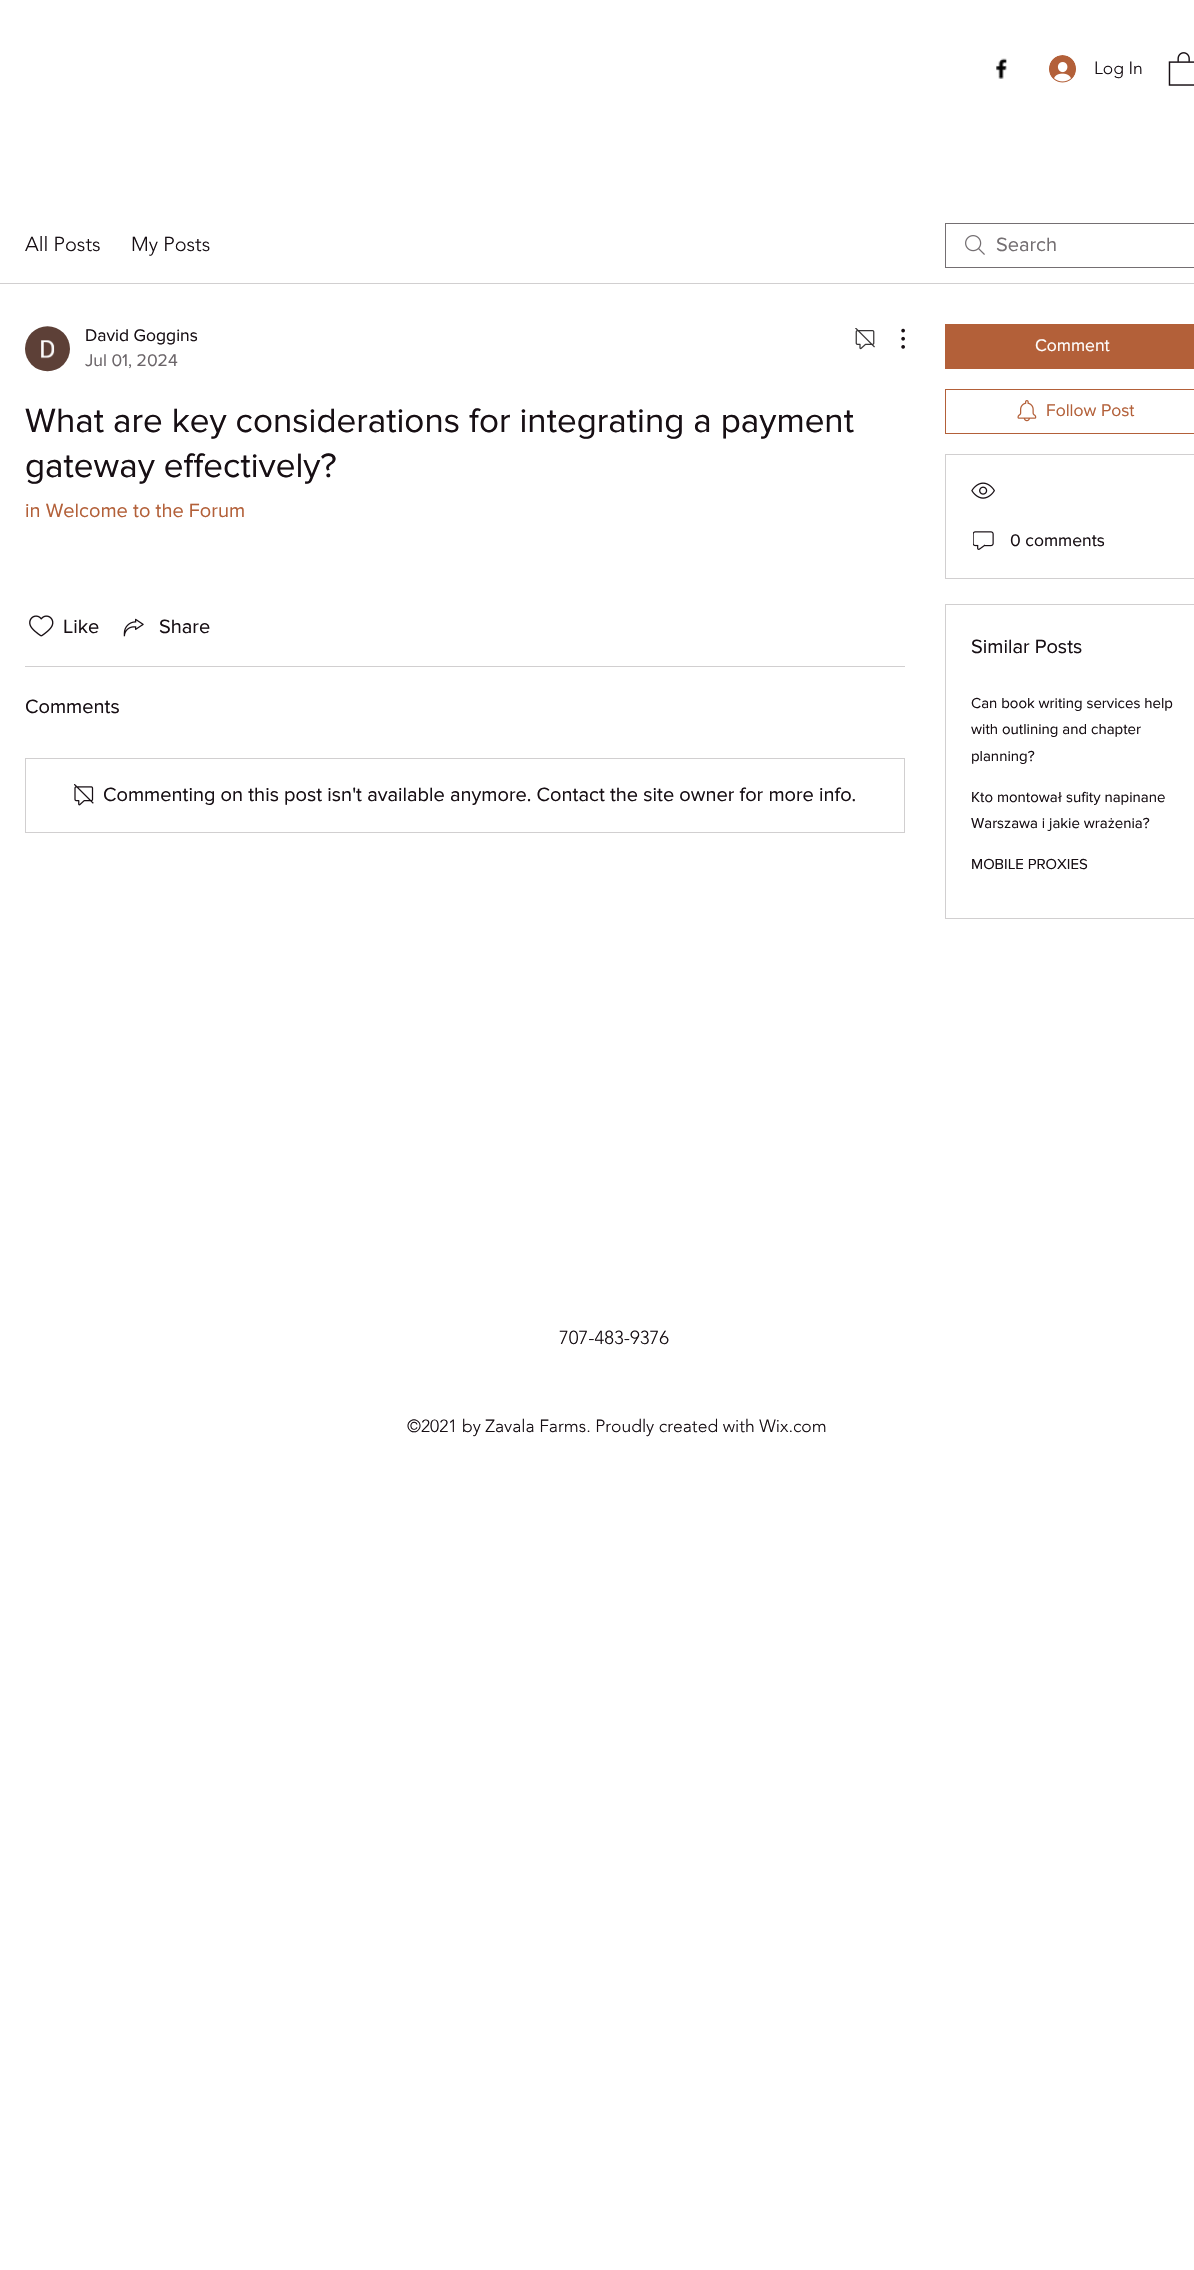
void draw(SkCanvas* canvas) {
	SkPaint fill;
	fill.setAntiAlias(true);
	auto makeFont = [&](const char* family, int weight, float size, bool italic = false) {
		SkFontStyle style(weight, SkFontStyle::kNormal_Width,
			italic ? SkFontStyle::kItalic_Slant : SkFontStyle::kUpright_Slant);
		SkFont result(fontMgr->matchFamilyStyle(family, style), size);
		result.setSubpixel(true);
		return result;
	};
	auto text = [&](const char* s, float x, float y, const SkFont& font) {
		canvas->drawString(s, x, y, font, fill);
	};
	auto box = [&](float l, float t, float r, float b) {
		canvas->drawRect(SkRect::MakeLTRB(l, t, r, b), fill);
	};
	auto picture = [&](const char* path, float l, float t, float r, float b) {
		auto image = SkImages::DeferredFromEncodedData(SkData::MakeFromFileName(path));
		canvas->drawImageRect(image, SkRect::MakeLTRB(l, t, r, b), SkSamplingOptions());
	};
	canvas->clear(0xFFFFFFFF);
	picture("image0.png", 996, 58, 1007, 79);
	picture("image1.png", 1049, 55, 1076, 83);
	picture("image2.png", 1168, 52, 1194, 86);
	fill.setColor(0xFFD1CFD0);
	box(0, 283, 1194, 284);
	picture("image3.png", 965, 235, 985, 255);
	fill.setStyle(SkPaint::kStroke_Style);
	fill.setStrokeWidth(1);
	fill.setColor(0xFF746F72);
	canvas->drawRect(SkRect::MakeLTRB(945.5f, 223.5f, 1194.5f, 267.5f), fill);
	picture("image4.png", 25, 326, 70, 372);
	picture("image5.png", 855, 328, 875, 350);
	picture("image6.png", 901, 328, 905, 349);
	picture("image7.png", 29, 615, 54, 637);
	picture("image8.png", 123, 618, 144, 637);
	fill.setStyle(SkPaint::kFill_Style);
	fill.setColor(0xFFD1CFD0);
	box(25, 666, 905, 667);
	fill.setStyle(SkPaint::kStroke_Style);
	canvas->drawRect(SkRect::MakeLTRB(25.5f, 758.5f, 904.5f, 832.5f), fill);
	picture("image9.png", 74, 784, 94, 806);
	fill.setStyle(SkPaint::kFill_Style);
	fill.setColor(0xFFB36039);
	box(945, 324, 1194, 369);
	fill.setStyle(SkPaint::kStroke_Style);
	canvas->drawRect(SkRect::MakeLTRB(945.5f, 389.5f, 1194.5f, 433.5f), fill);
	picture("image10.png", 1017, 400, 1037, 422);
	fill.setColor(0xFFD1CFD0);
	canvas->drawRect(SkRect::MakeLTRB(945.5f, 454.5f, 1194.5f, 578.5f), fill);
	picture("image11.png", 971, 482, 995, 499);
	picture("image12.png", 973, 531, 994, 550);
	canvas->drawRect(SkRect::MakeLTRB(945.5f, 604.5f, 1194.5f, 918.5f), fill);
	auto font1 = makeFont("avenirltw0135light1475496", 300, 17.5f);
	fill.setStyle(SkPaint::kFill_Style);
	fill.setColor(0xFF170F14);
	text("Log In", 1094, 74, font1);
	auto font2 = makeFont("avenirltw0135light1475496", 300, 20);
	text("All Posts", 25, 251, font2);
	text("My Posts", 131, 251, font2);
	auto font3 = makeFont("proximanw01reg", 400, 20);
	fill.setColor(0xFF746F72);
	text("Search", 996, 251, font3);
	auto font4 = makeFont("proximanw01reg", 400, 17.5f);
	fill.setColor(0xFF170F14);
	text("David Goggins", 85, 341, font4);
	fill.setColor(0xFF6B6569);
	text("Jul 01, 2024", 85, 366, font4);
	auto font5 = makeFont("proximanw01reg", 400, 35);
	fill.setColor(0xFF170F14);
	text("What are key considerations for integrating a payment", 25, 432, font5);
	text("gateway effectively?", 25, 477, font5);
	fill.setColor(0xFFB36039);
	text("in Welcome to the Forum", 25, 517, font3);
	fill.setColor(0xFF170F14);
	text("Like", 63, 633, font3);
	text("Share", 159, 633, font3);
	text("Comments", 25, 713, font3);
	text("Commenting on this post isn't available anymore. Contact the site owner for more info.", 103, 801, font3);
	fill.setColor(0xFFFFFFFF);
	text("Comment", 1035, 351, font4);
	fill.setColor(0xFFB36039);
	text("Follow Post", 1046, 416, font4);
	fill.setColor(0xFF170F14);
	text("0 comments", 1010, 546, font4);
	text("Similar Posts", 971, 653, font3);
	auto font6 = makeFont("proximanw01reg", 400, 15);
	text("Can book writing services help", 971, 708, font6);
	text("with outlining and chapter", 971, 734, font6);
	text("planning?", 971, 761, font6);
	text("Kto montował sufity napinane", 971, 802, font6);
	text("Warszawa i jakie wrażenia?", 971, 828, font6);
	text("MOBILE PROXIES", 971, 869, font6);
	auto font7 = makeFont("avenirltw0135light1475496", 300, 18.75f);
	text("707-483-9376", 559, 1344, font7);
	text("©2021 by Zavala Farms. Proudly created with Wix.com", 407, 1432, font1);
}
